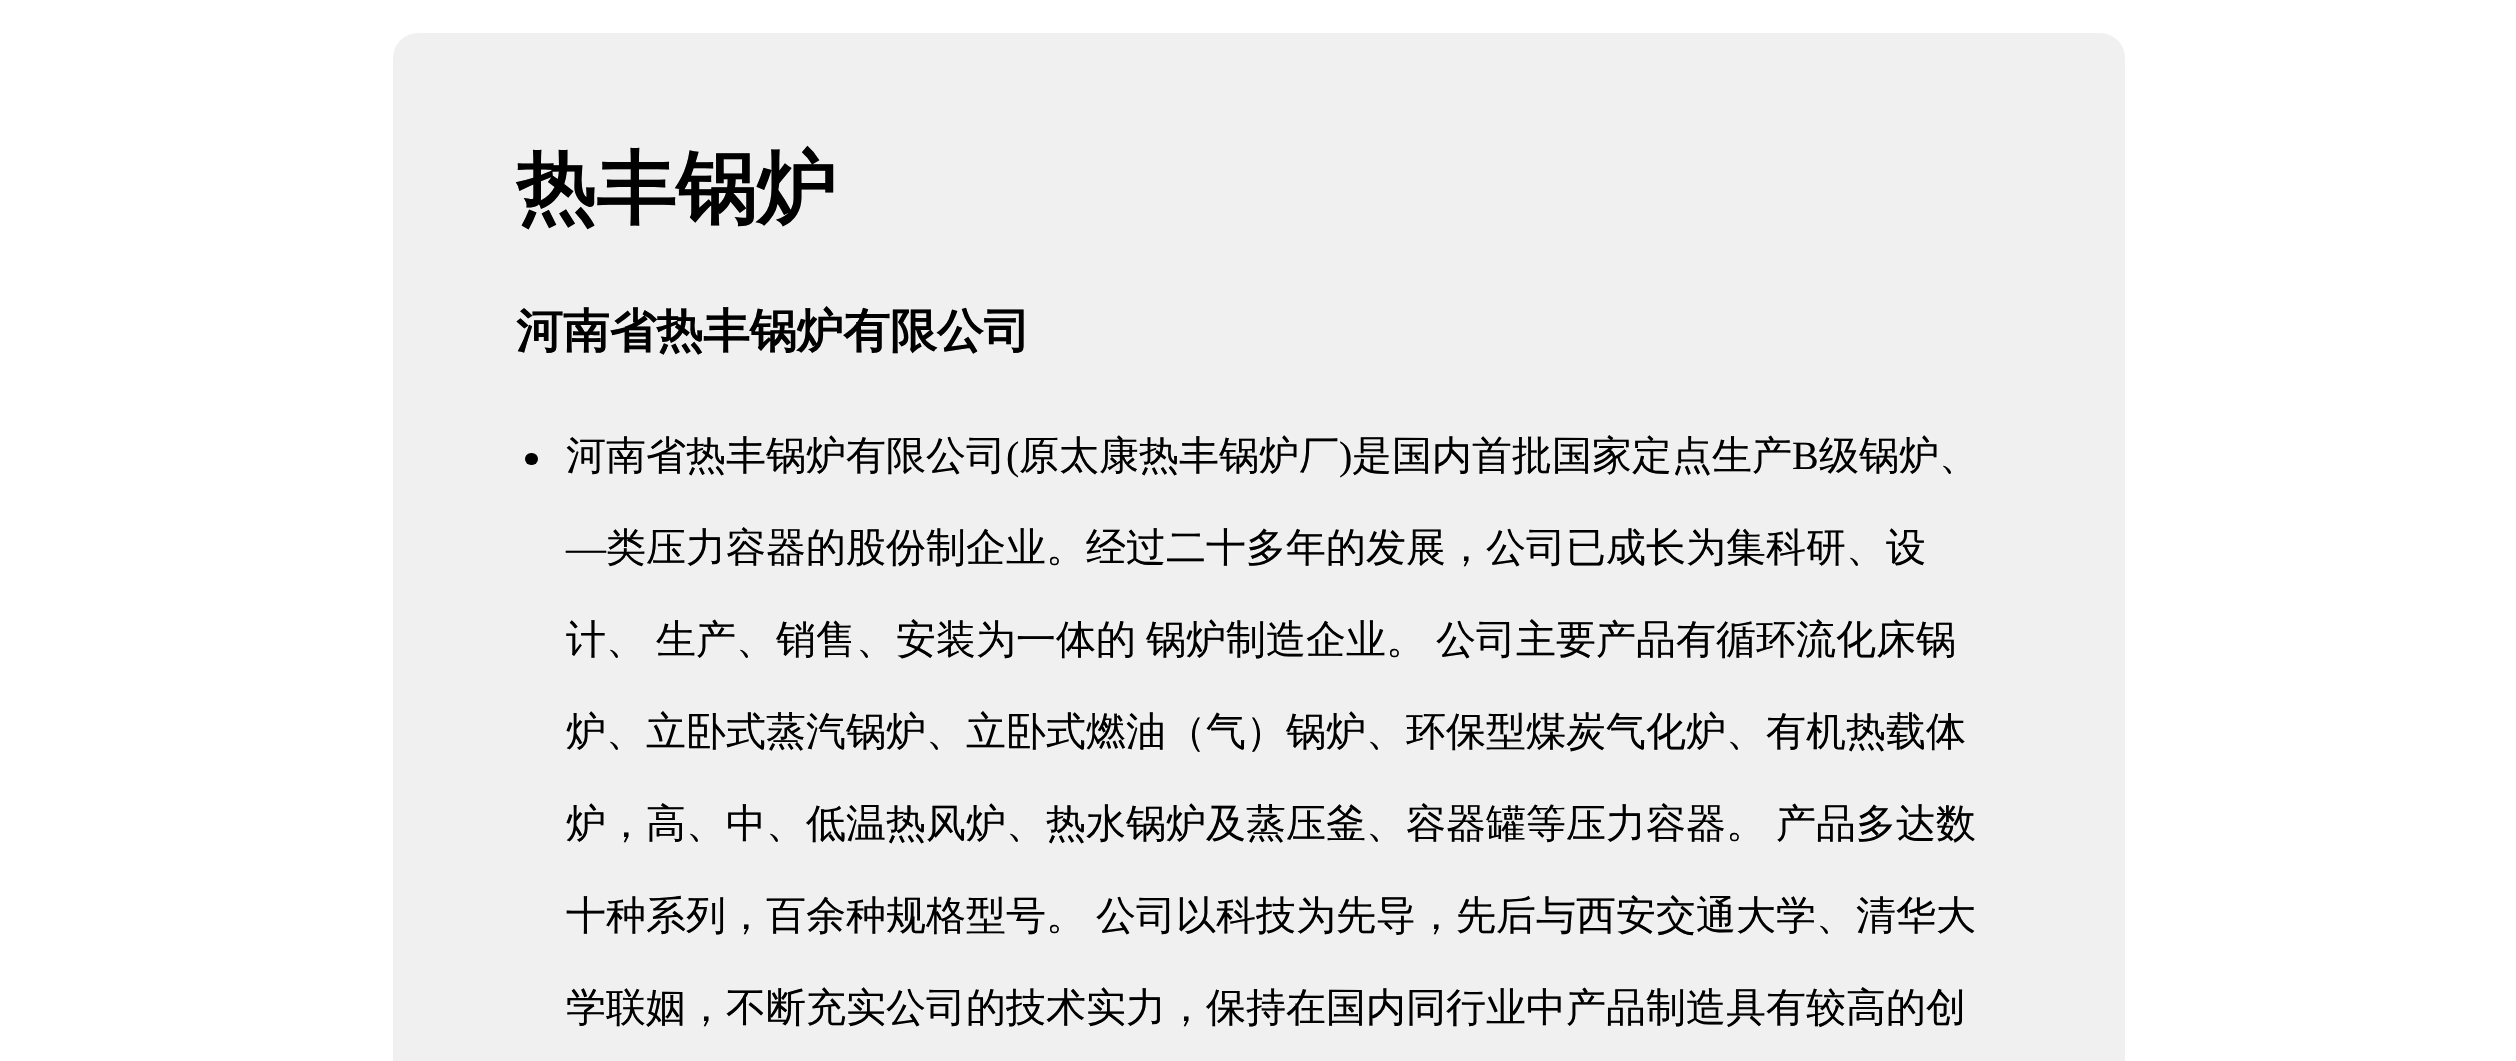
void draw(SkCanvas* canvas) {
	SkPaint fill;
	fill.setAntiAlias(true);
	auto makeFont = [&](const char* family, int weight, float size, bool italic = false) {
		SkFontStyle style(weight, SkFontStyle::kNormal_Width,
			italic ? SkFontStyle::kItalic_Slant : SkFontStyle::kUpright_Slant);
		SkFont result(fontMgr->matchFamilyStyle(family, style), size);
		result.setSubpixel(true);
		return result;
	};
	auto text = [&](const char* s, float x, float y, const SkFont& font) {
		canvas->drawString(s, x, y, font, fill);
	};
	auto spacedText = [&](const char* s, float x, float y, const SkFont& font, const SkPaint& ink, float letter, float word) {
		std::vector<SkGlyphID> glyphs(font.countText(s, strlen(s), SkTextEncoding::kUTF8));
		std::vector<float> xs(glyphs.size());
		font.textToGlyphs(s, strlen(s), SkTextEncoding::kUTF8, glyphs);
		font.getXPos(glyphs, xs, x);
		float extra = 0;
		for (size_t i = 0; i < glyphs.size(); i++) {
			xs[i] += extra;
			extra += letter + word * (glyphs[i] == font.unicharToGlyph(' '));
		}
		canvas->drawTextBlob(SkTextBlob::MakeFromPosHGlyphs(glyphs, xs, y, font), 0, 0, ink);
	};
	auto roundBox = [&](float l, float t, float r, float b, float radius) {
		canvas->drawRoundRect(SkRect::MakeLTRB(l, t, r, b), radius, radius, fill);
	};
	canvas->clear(0xFFFFFFFF);
	fill.setColor(0xFFF0F0F0);
	roundBox(393, 33, 2125, 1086, 25);
	fill.setColor(0xFF000000);
	roundBox(525, 453, 538, 465, 6);
	auto font1 = makeFont("WenQuanYi Zen Hei", 700, 80);
	text("热丰锅炉", 516, 216, font1);
	auto font2 = makeFont("WenQuanYi Zen Hei", 700, 46.75f);
	text("河南省热丰锅炉有限公司", 516, 347, font2);
	auto font3 = makeFont("WenQuanYi Zen Hei", 500, 40);
	text("河南省热丰锅炉有限公司", 566, 469, font3);
	auto font4 = makeFont("Liberation Serif", 400, 40);
	text("(", 1006, 469, font4);
	text("原太康热丰锅炉厂", 1019, 469, font3);
	text(")", 1339, 469, font4);
	text("是国内首批国家定点生产", 1352, 469, font3);
	text("B", 1792, 469, font4);
	text("级锅炉、", 1819, 469, font3);
	text("—", 566, 561, font4);
	text("类压力容器的股份制企业。经过二十多年的发展，公司已成长为集科研、设", 606, 561, font3);
	spacedText("计、 生产、销售、安装为一体的 锅炉制造企业。 公司主要产品有循环流化床锅", 566, 653, font3, fill, 0, -2);
	text("炉、立卧式蒸汽锅炉、立卧式燃油（气）锅炉、环保型煤炭气化炉、有机热载体", 566, 745, font3);
	spacedText("炉，高、中、低温热风炉、热水锅炉及蒸压釜、容器罐等压力容器。 产品多达数", 566, 837, font3, fill, 0, -2);
	text("十种系列，百余种规格型号。", 566, 929, font3);
	text("公司以科技为先导，先后与西安交通大学、清华大", 1096, 929, font3);
	text("学联姻，不断充实公司的技术实力，保持在国内同行业中产品制造具有较高的创", 566, 1021, font3);
}
